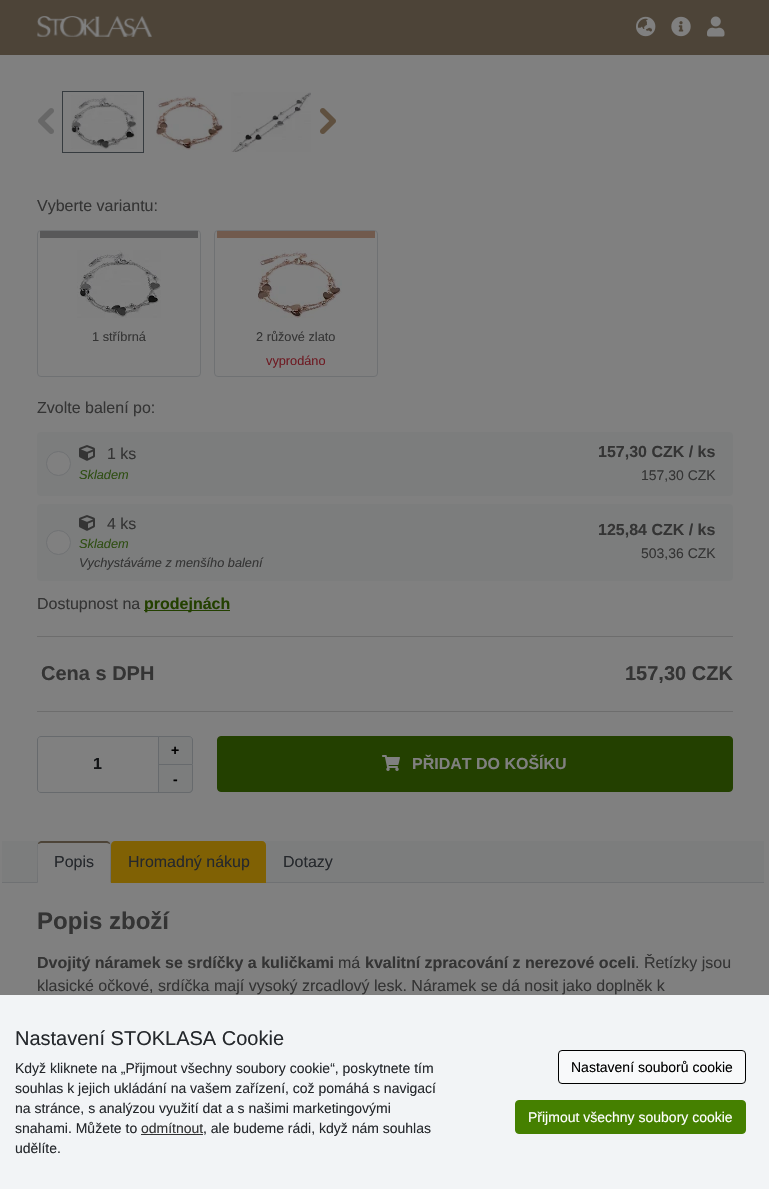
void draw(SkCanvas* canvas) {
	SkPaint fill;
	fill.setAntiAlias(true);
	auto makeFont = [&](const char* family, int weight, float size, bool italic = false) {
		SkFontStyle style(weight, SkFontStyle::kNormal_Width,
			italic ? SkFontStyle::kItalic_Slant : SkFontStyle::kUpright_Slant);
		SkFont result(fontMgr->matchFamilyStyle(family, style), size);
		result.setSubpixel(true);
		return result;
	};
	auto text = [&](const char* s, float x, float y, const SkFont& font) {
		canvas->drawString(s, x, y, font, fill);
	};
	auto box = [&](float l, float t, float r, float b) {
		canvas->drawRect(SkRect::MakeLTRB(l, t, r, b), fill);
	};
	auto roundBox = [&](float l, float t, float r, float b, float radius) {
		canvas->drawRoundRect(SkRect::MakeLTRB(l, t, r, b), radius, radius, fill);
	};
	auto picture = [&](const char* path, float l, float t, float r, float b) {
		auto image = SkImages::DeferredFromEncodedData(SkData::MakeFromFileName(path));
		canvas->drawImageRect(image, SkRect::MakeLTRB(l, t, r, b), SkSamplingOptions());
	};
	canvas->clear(0xFF808080);
	fill.setColor(0xFF4D4438);
	box(0, 0, 769, 55);
	picture("image0.png", 37, 16, 152, 37);
	picture("image1.png", 636, 16, 656, 37);
	picture("image2.png", 671, 16, 691, 37);
	picture("image3.png", 707, 16, 725, 37);
	picture("image4.png", 38, 108, 54, 134);
	fill.setStyle(SkPaint::kStroke_Style);
	fill.setStrokeWidth(1);
	fill.setColor(0xFF363B3F);
	canvas->drawRect(SkRect::MakeLTRB(62.5f, 91.5f, 143.5f, 152.5f), fill);
	picture("image5.png", 71, 95, 137, 149);
	picture("image6.png", 156, 96, 224, 150);
	picture("image7.png", 231, 92, 311, 152);
	picture("image8.png", 320, 108, 336, 134);
	fill.setColor(0xFF6F7173);
	canvas->drawRoundRect(SkRect::MakeLTRB(37.5f, 230.5f, 200.5f, 376.5f), 3.5f, 3.5f, fill);
	fill.setStyle(SkPaint::kFill_Style);
	fill.setColor(0xFF585859);
	box(40, 231, 198, 238);
	picture("image9.png", 77, 250, 161, 318);
	fill.setStyle(SkPaint::kStroke_Style);
	fill.setColor(0xFF6F7173);
	canvas->drawRoundRect(SkRect::MakeLTRB(214.5f, 230.5f, 377.5f, 376.5f), 3.5f, 3.5f, fill);
	fill.setStyle(SkPaint::kFill_Style);
	fill.setColor(0xFF715A4D);
	box(217, 231, 375, 238);
	picture("image10.png", 258, 250, 342, 318);
	fill.setColor(0xFF7C7D7D);
	roundBox(37, 432, 733, 496, 4);
	fill.setColor(0xFF808080);
	canvas->drawCircle(58.5f, 463.5f, 12, fill);
	fill.setStyle(SkPaint::kStroke_Style);
	fill.setColor(0xFF6F7173);
	canvas->drawCircle(58.5f, 463.5f, 12, fill);
	picture("image11.png", 79, 445, 95, 461);
	fill.setStyle(SkPaint::kFill_Style);
	fill.setColor(0xFF7C7D7D);
	roundBox(37, 504, 733, 581, 4);
	fill.setColor(0xFF808080);
	canvas->drawCircle(58.5f, 542.5f, 12, fill);
	fill.setStyle(SkPaint::kStroke_Style);
	fill.setColor(0xFF6F7173);
	canvas->drawCircle(58.5f, 542.5f, 12, fill);
	picture("image11.png", 79, 515, 95, 531);
	fill.setStyle(SkPaint::kFill_Style);
	fill.setColor(0xFF234000);
	box(144, 610, 230, 611);
	fill.setColor(0xFF6D6D6D);
	box(37, 636, 733, 637);
	box(37, 711, 733, 712);
	fill.setColor(0xFF7C7D7D);
	canvas->drawPath(SkPathBuilder().moveTo(158.5f, 736.5f).lineTo(189, 736.5f).cubicTo(191, 736.5f, 192.5f, 738, 192.5f, 740).lineTo(192.5f, 764.5f).lineTo(158.5f, 764.5f).close().detach(), fill);
	fill.setStyle(SkPaint::kStroke_Style);
	fill.setColor(0xFF676A6D);
	canvas->drawPath(SkPathBuilder().moveTo(158.5f, 736.5f).lineTo(189, 736.5f).cubicTo(191, 736.5f, 192.5f, 738, 192.5f, 740).lineTo(192.5f, 764.5f).lineTo(158.5f, 764.5f).close().detach(), fill);
	fill.setStyle(SkPaint::kFill_Style);
	fill.setColor(0xFF7C7D7D);
	canvas->drawPath(SkPathBuilder().moveTo(158, 765).lineTo(193, 765).lineTo(193, 789).cubicTo(193, 791, 191, 793, 189, 793).lineTo(158, 793).close().detach(), fill);
	fill.setColor(0xFF676A6D);
	canvas->drawPath(SkPathBuilder(SkPathFillType::kEvenOdd).moveTo(158, 765).lineTo(193, 765).lineTo(193, 789).cubicTo(193, 791, 191, 793, 189, 793).lineTo(158, 793).close().moveTo(159, 765).lineTo(192, 765).lineTo(192, 789).cubicTo(192, 790.5f, 190.5f, 792, 189, 792).lineTo(159, 792).close().detach(), fill);
	fill.setStyle(SkPaint::kStroke_Style);
	canvas->drawPath(SkPathBuilder().moveTo(41, 736.5f).lineTo(158.5f, 736.5f).lineTo(158.5f, 792.5f).lineTo(41, 792.5f).cubicTo(39, 792.5f, 37.5f, 791, 37.5f, 789).lineTo(37.5f, 740).cubicTo(37.5f, 738, 39, 736.5f, 41, 736.5f).close().detach(), fill);
	fill.setStyle(SkPaint::kFill_Style);
	fill.setColor(0xFF234000);
	canvas->drawRoundRect(SkRect::MakeLTRB(217.5f, 736.5f, 732.5f, 791.5f), 3.5f, 3.5f, fill);
	fill.setStyle(SkPaint::kStroke_Style);
	canvas->drawRoundRect(SkRect::MakeLTRB(217.5f, 736.5f, 732.5f, 791.5f), 3.5f, 3.5f, fill);
	picture("image12.png", 382, 755, 400, 771);
	fill.setStyle(SkPaint::kFill_Style);
	fill.setColor(0xFF7C7D7D);
	box(2, 841, 764, 882);
	fill.setColor(0xFF6F7173);
	box(2, 882, 764, 883);
	fill.setColor(0xFF808080);
	canvas->drawPath(SkPathBuilder().moveTo(41, 843).lineTo(107, 843).cubicTo(109, 843, 110, 844, 110, 845).lineTo(110, 882).lineTo(38, 882).lineTo(38, 845).cubicTo(38, 844, 39, 843, 41, 843).close().detach(), fill);
	fill.setColor(0xFF4D4438);
	canvas->drawPath(SkPathBuilder().moveTo(41, 841).cubicTo(40, 841, 39, 842, 38, 843).lineTo(38, 844).lineTo(41, 843).lineTo(107, 843).lineTo(110, 844).lineTo(110, 843).cubicTo(109, 842, 108, 841, 107, 841).close().detach(), fill);
	fill.setColor(0xFF6F7173);
	canvas->drawPath(SkPathBuilder().moveTo(111, 883).lineTo(111, 845).lineTo(110, 843).lineTo(110, 844).cubicTo(111, 845, 110, 878, 110, 882).close().detach(), fill);
	fill.setColor(0xFF808080);
	canvas->drawPath(SkPathBuilder().moveTo(111, 883).lineTo(110, 882).lineTo(38, 882).lineTo(37, 883).close().detach(), fill);
	fill.setColor(0xFF6F7173);
	canvas->drawPath(SkPathBuilder().moveTo(37, 883).lineTo(38, 882).cubicTo(38, 878, 37, 845, 38, 844).lineTo(38, 843).lineTo(37, 845).close().detach(), fill);
	fill.setColor(0xFF806104);
	canvas->drawPath(SkPathBuilder().moveTo(115, 841).lineTo(262, 841).cubicTo(264, 841, 266, 843, 266, 845).lineTo(266, 883).lineTo(111, 883).lineTo(111, 845).cubicTo(111, 843, 113, 841, 115, 841).close().detach(), fill);
	fill.setColor(0xFFF2F4F6);
	box(0, 995, 769, 1189);
	fill.setColor(0xFF333333);
	box(141, 1134, 203, 1135);
	fill.setColor(0xFFF8F9FA);
	canvas->drawRoundRect(SkRect::MakeLTRB(558.5f, 1050.5f, 745.5f, 1083.5f), 3.5f, 3.5f, fill);
	fill.setStyle(SkPaint::kStroke_Style);
	fill.setColor(0xFF000000);
	canvas->drawRoundRect(SkRect::MakeLTRB(558.5f, 1050.5f, 745.5f, 1083.5f), 3.5f, 3.5f, fill);
	fill.setStyle(SkPaint::kFill_Style);
	fill.setColor(0xFF458000);
	canvas->drawRoundRect(SkRect::MakeLTRB(515.5f, 1100.5f, 745.5f, 1133.5f), 3.5f, 3.5f, fill);
	fill.setStyle(SkPaint::kStroke_Style);
	canvas->drawRoundRect(SkRect::MakeLTRB(515.5f, 1100.5f, 745.5f, 1133.5f), 3.5f, 3.5f, fill);
	auto font1 = makeFont("Liberation Sans", 400, 16);
	fill.setStyle(SkPaint::kFill_Style);
	fill.setColor(0xFF343434);
	text("Vyberte variantu:", 37, 211, font1);
	auto font2 = makeFont("Liberation Sans", 400, 12.75f);
	text("1 stříbrná", 92, 341, font2);
	text("2 růžové zlato", 256, 341, font2);
	fill.setColor(0xFF6E1B23);
	text("vyprodáno", 266, 365, font2);
	fill.setColor(0xFF343434);
	text("Zvolte balení po:", 37, 413, font1);
	text("1 ks", 107, 459, font1);
	auto font3 = makeFont("Liberation Sans", 400, 12.75f, true);
	fill.setColor(0xFF2F4E13);
	text("Skladem", 79, 479, font3);
	auto font4 = makeFont("Liberation Sans", 700, 16);
	fill.setColor(0xFF343434);
	text("157,30 CZK / ks", 598, 457, font4);
	auto font5 = makeFont("Liberation Sans", 400, 14);
	text("157,30 CZK", 641, 480, font5);
	text("4 ks", 107, 529, font1);
	fill.setColor(0xFF2F4E13);
	text("Skladem", 79, 548, font3);
	fill.setColor(0xFF343434);
	text("Vychystáváme z menšího balení", 79, 567, font3);
	text("125,84 CZK / ks", 598, 535, font4);
	text("503,36 CZK", 641, 558, font5);
	text("Dostupnost na", 37, 609, font1);
	fill.setColor(0xFF234000);
	text("prodejnách", 144, 609, font4);
	auto font6 = makeFont("Liberation Sans", 700, 20);
	fill.setColor(0xFF343434);
	text("Cena s DPH", 41, 680, font6);
	text("157,30 CZK", 625, 680, font6);
	fill.setColor(0xFF111315);
	text("1", 93, 769, font4);
	auto font7 = makeFont("Liberation Sans", 700, 14);
	fill.setColor(0xFF000000);
	text("+", 171, 755, font7);
	text("-", 173, 784, font7);
	fill.setColor(0xFF808080);
	text("PŘIDAT DO KOŠÍKU", 412, 769, font4);
	fill.setColor(0xFF25282C);
	text("Popis", 54, 867, font1);
	text("Hromadný nákup", 128, 867, font1);
	text("Dotazy", 283, 867, font1);
	auto font8 = makeFont("Liberation Sans", 700, 24);
	fill.setColor(0xFF343434);
	text("Popis zboží", 37, 929, font8);
	text("Dvojitý náramek se srdíčky a kuličkami", 37, 968, font4);
	text("má", 338, 968, font1);
	text("kvalitní zpracování z nerezové oceli", 365, 968, font4);
	text(". Řetízky jsou", 635, 968, font1);
	text("klasické očkové, srdíčka mají vysoký zrcadlový lesk. Náramek se dá nosit jako doplněk k", 37, 991, font1);
	auto font9 = makeFont("Liberation Sans", 400, 20);
	fill.setColor(0xFF25282C);
	text("Nastavení STOKLASA Cookie", 15, 1045, font9);
	text("Když kliknete na „Přijmout všechny soubory cookie“, poskytnete tím", 15, 1073, font5);
	text("souhlas k jejich ukládání na vašem zařízení, což pomáhá s navigací", 15, 1093, font5);
	text("na stránce, s analýzou využití dat a s našimi marketingovými", 15, 1113, font5);
	text("snahami. Můžete to", 15, 1133, font5);
	fill.setColor(0xFF343434);
	text("odmítnout", 141, 1133, font5);
	fill.setColor(0xFF25282C);
	text(", ale budeme rádi, když nám souhlas", 203, 1133, font5);
	text("udělíte.", 15, 1153, font5);
	fill.setColor(0xFF000000);
	text("Nastavení souborů cookie", 571, 1072, font5);
	fill.setColor(0xFFFFFFFF);
	text("Přijmout všechny soubory cookie", 528, 1122, font5);
}
